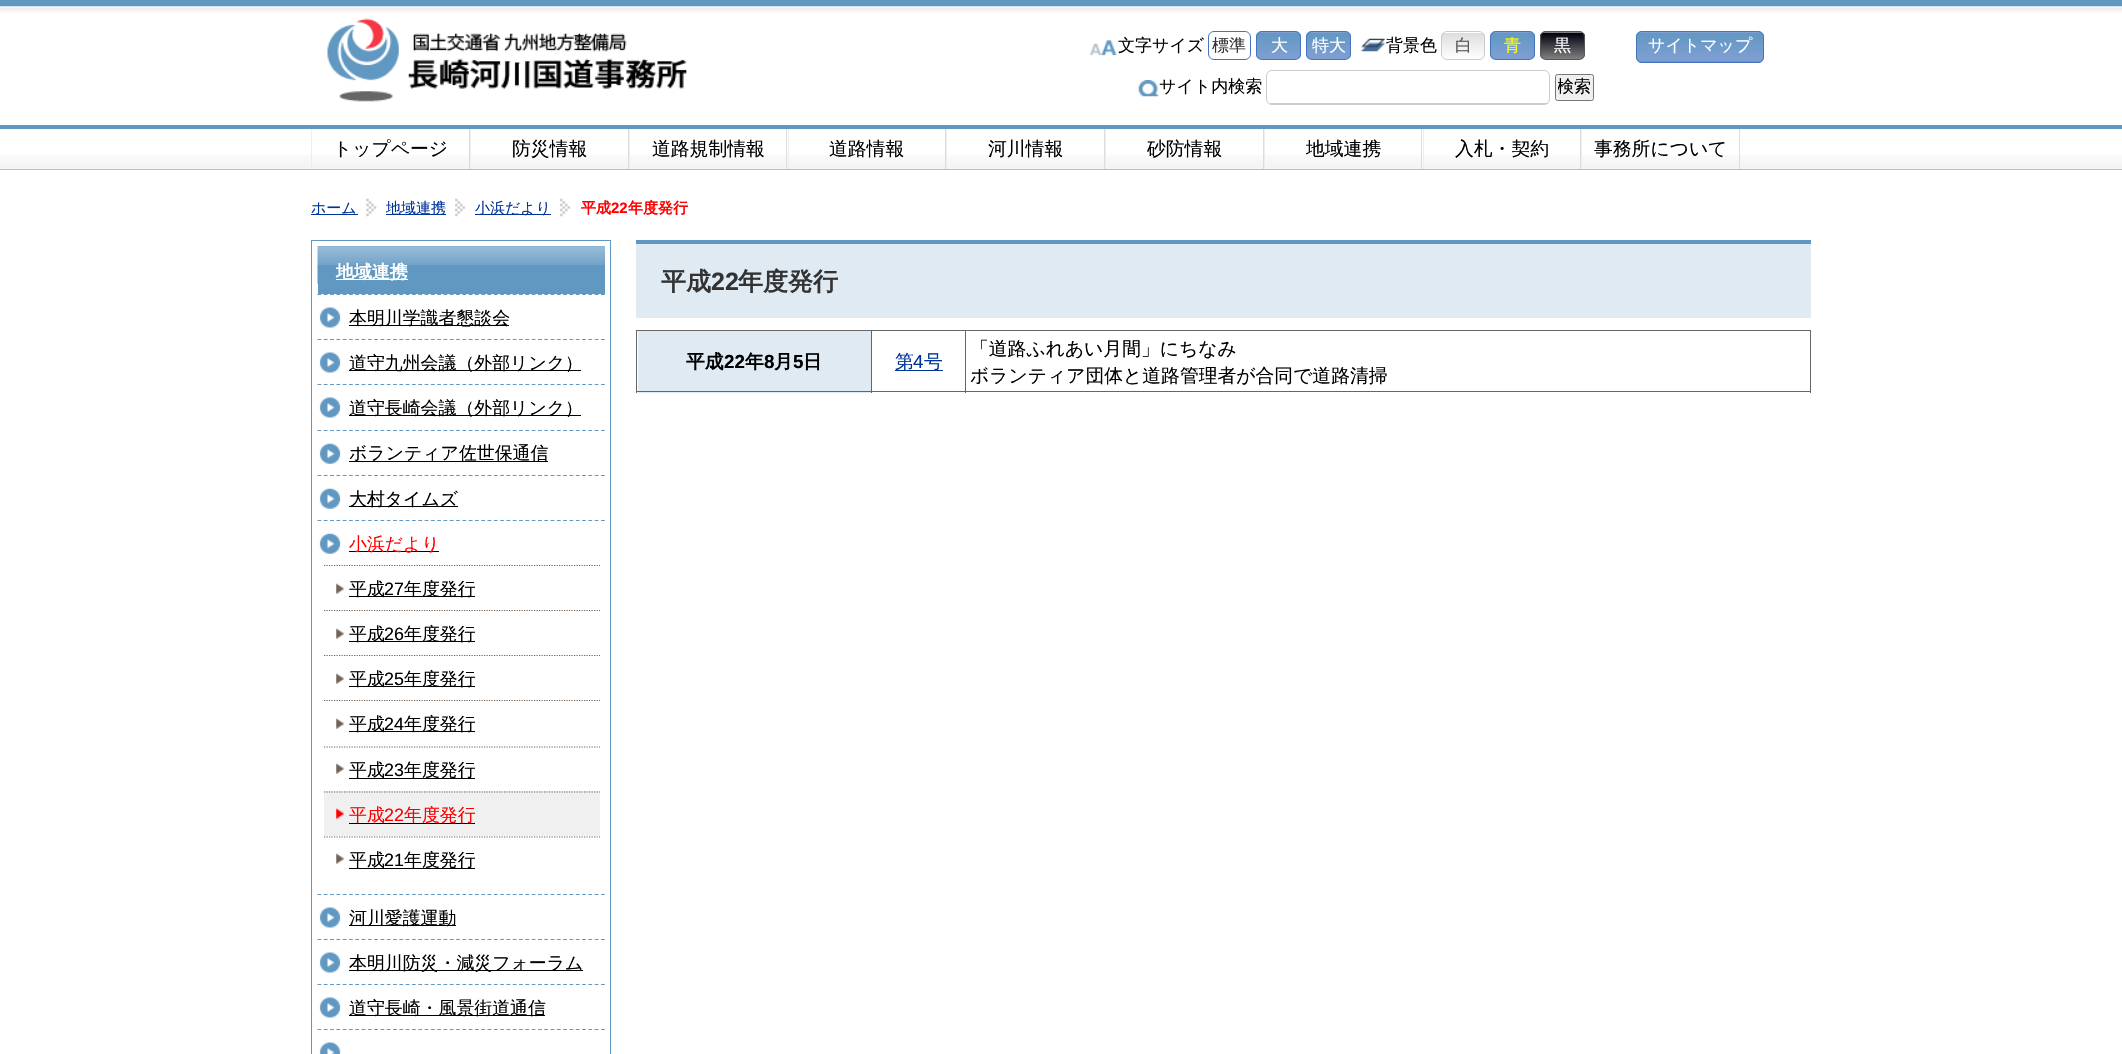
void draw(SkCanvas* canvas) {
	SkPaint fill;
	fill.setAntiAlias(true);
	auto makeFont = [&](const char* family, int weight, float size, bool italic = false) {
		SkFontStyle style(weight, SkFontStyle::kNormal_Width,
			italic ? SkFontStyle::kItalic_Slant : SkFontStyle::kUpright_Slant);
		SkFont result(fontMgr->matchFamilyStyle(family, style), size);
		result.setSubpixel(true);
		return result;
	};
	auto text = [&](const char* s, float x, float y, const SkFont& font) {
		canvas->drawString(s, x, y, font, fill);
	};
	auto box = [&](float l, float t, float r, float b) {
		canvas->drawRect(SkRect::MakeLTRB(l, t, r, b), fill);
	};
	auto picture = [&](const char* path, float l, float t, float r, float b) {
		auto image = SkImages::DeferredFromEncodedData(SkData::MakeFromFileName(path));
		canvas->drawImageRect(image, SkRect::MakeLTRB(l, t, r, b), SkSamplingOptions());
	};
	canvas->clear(0xFFFFFFFF);
	picture("image0.png", 0, 0, 2122, 13);
	picture("image1.png", 327, 18, 687, 102);
	picture("image2.png", 1090, 39, 1117, 56);
	fill.setStyle(SkPaint::kStroke_Style);
	fill.setStrokeWidth(1);
	fill.setColor(0xFF4573BF);
	canvas->drawRoundRect(SkRect::MakeLTRB(1208.5f, 31.5f, 1250.5f, 59.5f), 5.5f, 5.5f, fill);
	canvas->save();
	canvas->clipPath(SkPathBuilder().moveTo(1262, 31).lineTo(1295, 31).cubicTo(1298.5f, 31, 1301, 33.5f, 1301, 37).lineTo(1301, 54).cubicTo(1301, 57.5f, 1298.5f, 60, 1295, 60).lineTo(1262, 60).cubicTo(1258.5f, 60, 1256, 57.5f, 1256, 54).lineTo(1256, 37).cubicTo(1256, 33.5f, 1258.5f, 31, 1262, 31).close().detach(), true);
	fill.setStyle(SkPaint::kFill_Style);
	{
		const SkColor colors[] = {0xFF6198C2, 0xFF809FD3};
		const float stops[] = {0, 1};
		const SkPoint ends[] = {{1279, 6.2f}, {1279, 33}};
		fill.setShader(SkGradientShader::MakeLinear(ends, colors, stops, 2, SkTileMode::kClamp));
		fill.setAlpha(255);
	}
	box(1256, 31, 1301, 33);
	{
		const SkColor colors[] = {0xFF6198C2, 0xFF809FD3};
		const float stops[] = {0, 1};
		const SkPoint ends[] = {{1279, 33}, {1279, 59}};
		fill.setShader(SkGradientShader::MakeLinear(ends, colors, stops, 2, SkTileMode::kClamp));
		fill.setAlpha(255);
	}
	box(1256, 33, 1301, 59);
	canvas->restore();
	fill.setStyle(SkPaint::kStroke_Style);
	fill.setShader(nullptr);
	fill.setColor(0xFF4573BF);
	canvas->drawRoundRect(SkRect::MakeLTRB(1256.5f, 31.5f, 1300.5f, 59.5f), 5.5f, 5.5f, fill);
	canvas->save();
	canvas->clipPath(SkPathBuilder().moveTo(1312, 31).lineTo(1345, 31).cubicTo(1348.5f, 31, 1351, 33.5f, 1351, 37).lineTo(1351, 54).cubicTo(1351, 57.5f, 1348.5f, 60, 1345, 60).lineTo(1312, 60).cubicTo(1308.5f, 60, 1306, 57.5f, 1306, 54).lineTo(1306, 37).cubicTo(1306, 33.5f, 1308.5f, 31, 1312, 31).close().detach(), true);
	fill.setStyle(SkPaint::kFill_Style);
	{
		const SkColor colors[] = {0xFF6198C2, 0xFF809FD3};
		const float stops[] = {0, 1};
		const SkPoint ends[] = {{1329, 6.2f}, {1329, 33}};
		fill.setShader(SkGradientShader::MakeLinear(ends, colors, stops, 2, SkTileMode::kClamp));
		fill.setAlpha(255);
	}
	box(1306, 31, 1351, 33);
	{
		const SkColor colors[] = {0xFF6198C2, 0xFF809FD3};
		const float stops[] = {0, 1};
		const SkPoint ends[] = {{1329, 33}, {1329, 59}};
		fill.setShader(SkGradientShader::MakeLinear(ends, colors, stops, 2, SkTileMode::kClamp));
		fill.setAlpha(255);
	}
	box(1306, 33, 1351, 59);
	canvas->restore();
	fill.setStyle(SkPaint::kStroke_Style);
	fill.setShader(nullptr);
	fill.setColor(0xFF4573BF);
	canvas->drawRoundRect(SkRect::MakeLTRB(1306.5f, 31.5f, 1350.5f, 59.5f), 5.5f, 5.5f, fill);
	picture("image3.png", 1361, 38, 1385, 52);
	canvas->save();
	canvas->clipPath(SkPathBuilder().moveTo(1447, 31).lineTo(1479, 31).cubicTo(1482.5f, 31, 1485, 33.5f, 1485, 37).lineTo(1485, 54).cubicTo(1485, 57.5f, 1482.5f, 60, 1479, 60).lineTo(1447, 60).cubicTo(1443.5f, 60, 1441, 57.5f, 1441, 54).lineTo(1441, 37).cubicTo(1441, 33.5f, 1443.5f, 31, 1447, 31).close().detach(), true);
	fill.setStyle(SkPaint::kFill_Style);
	{
		const SkColor colors[] = {0xFFDDDDDD, 0xFFFFFFFF};
		const float stops[] = {0, 1};
		const SkPoint ends[] = {{1463, 33}, {1463, 59}};
		fill.setShader(SkGradientShader::MakeLinear(ends, colors, stops, 2, SkTileMode::kClamp));
		fill.setAlpha(255);
	}
	box(1441, 33, 1485, 59);
	canvas->restore();
	fill.setStyle(SkPaint::kStroke_Style);
	fill.setShader(nullptr);
	fill.setColor(0xFFCCCCCC);
	canvas->drawRoundRect(SkRect::MakeLTRB(1441.5f, 31.5f, 1484.5f, 59.5f), 5.5f, 5.5f, fill);
	canvas->save();
	canvas->clipPath(SkPathBuilder().moveTo(1496, 31).lineTo(1529, 31).cubicTo(1532.5f, 31, 1535, 33.5f, 1535, 37).lineTo(1535, 54).cubicTo(1535, 57.5f, 1532.5f, 60, 1529, 60).lineTo(1496, 60).cubicTo(1492.5f, 60, 1490, 57.5f, 1490, 54).lineTo(1490, 37).cubicTo(1490, 33.5f, 1492.5f, 31, 1496, 31).close().detach(), true);
	fill.setStyle(SkPaint::kFill_Style);
	{
		const SkColor colors[] = {0xFF6198C2, 0xFF809FD3};
		const float stops[] = {0, 1};
		const SkPoint ends[] = {{1513, 6.2f}, {1513, 33}};
		fill.setShader(SkGradientShader::MakeLinear(ends, colors, stops, 2, SkTileMode::kClamp));
		fill.setAlpha(255);
	}
	box(1490, 31, 1535, 33);
	{
		const SkColor colors[] = {0xFF6198C2, 0xFF809FD3};
		const float stops[] = {0, 1};
		const SkPoint ends[] = {{1513, 33}, {1513, 59}};
		fill.setShader(SkGradientShader::MakeLinear(ends, colors, stops, 2, SkTileMode::kClamp));
		fill.setAlpha(255);
	}
	box(1490, 33, 1535, 59);
	canvas->restore();
	fill.setStyle(SkPaint::kStroke_Style);
	fill.setShader(nullptr);
	fill.setColor(0xFF4573BF);
	canvas->drawRoundRect(SkRect::MakeLTRB(1490.5f, 31.5f, 1534.5f, 59.5f), 5.5f, 5.5f, fill);
	canvas->save();
	canvas->clipPath(SkPathBuilder().moveTo(1546, 31).lineTo(1579, 31).cubicTo(1582.5f, 31, 1585, 33.5f, 1585, 37).lineTo(1585, 54).cubicTo(1585, 57.5f, 1582.5f, 60, 1579, 60).lineTo(1546, 60).cubicTo(1542.5f, 60, 1540, 57.5f, 1540, 54).lineTo(1540, 37).cubicTo(1540, 33.5f, 1542.5f, 31, 1546, 31).close().detach(), true);
	fill.setStyle(SkPaint::kFill_Style);
	{
		const SkColor colors[] = {0xFF00000F, 0xFF808080};
		const float stops[] = {0, 1};
		const SkPoint ends[] = {{1563, 6.2f}, {1563, 33}};
		fill.setShader(SkGradientShader::MakeLinear(ends, colors, stops, 2, SkTileMode::kClamp));
		fill.setAlpha(255);
	}
	box(1540, 31, 1585, 33);
	{
		const SkColor colors[] = {0xFF00000F, 0xFF808080};
		const float stops[] = {0, 1};
		const SkPoint ends[] = {{1563, 33}, {1563, 59}};
		fill.setShader(SkGradientShader::MakeLinear(ends, colors, stops, 2, SkTileMode::kClamp));
		fill.setAlpha(255);
	}
	box(1540, 33, 1585, 59);
	canvas->restore();
	fill.setStyle(SkPaint::kStroke_Style);
	fill.setShader(nullptr);
	fill.setColor(0xFF555555);
	canvas->drawRoundRect(SkRect::MakeLTRB(1540.5f, 31.5f, 1584.5f, 59.5f), 5.5f, 5.5f, fill);
	picture("image4.png", 1138, 80, 1159, 97);
	fill.setColor(0xFFCCCCCC);
	canvas->drawRoundRect(SkRect::MakeLTRB(1266.5f, 70.5f, 1549.5f, 104.5f), 5.5f, 5.5f, fill);
	fill.setStyle(SkPaint::kFill_Style);
	box(1270, 103, 1548, 104);
	fill.setColor(0xFFEFEFEF);
	canvas->drawRoundRect(SkRect::MakeLTRB(1555.5f, 74.5f, 1593.5f, 100.5f), 2, 2, fill);
	fill.setStyle(SkPaint::kStroke_Style);
	fill.setColor(0xFF767676);
	canvas->drawRoundRect(SkRect::MakeLTRB(1555.5f, 74.5f, 1593.5f, 100.5f), 2, 2, fill);
	canvas->save();
	canvas->clipPath(SkPathBuilder().moveTo(1642, 31).lineTo(1758, 31).cubicTo(1761.5f, 31, 1764, 33.5f, 1764, 37).lineTo(1764, 57).cubicTo(1764, 60.5f, 1761.5f, 63, 1758, 63).lineTo(1642, 63).cubicTo(1638.5f, 63, 1636, 60.5f, 1636, 57).lineTo(1636, 37).cubicTo(1636, 33.5f, 1638.5f, 31, 1642, 31).close().detach(), true);
	fill.setStyle(SkPaint::kFill_Style);
	{
		const SkColor colors[] = {0xFF6198C2, 0xFF809FD3};
		const float stops[] = {0, 1};
		const SkPoint ends[] = {{1700, 3.8f}, {1700, 33}};
		fill.setShader(SkGradientShader::MakeLinear(ends, colors, stops, 2, SkTileMode::kClamp));
		fill.setAlpha(255);
	}
	box(1636, 31, 1764, 33);
	{
		const SkColor colors[] = {0xFF6198C2, 0xFF809FD3};
		const float stops[] = {0, 1};
		const SkPoint ends[] = {{1700, 33}, {1700, 61}};
		fill.setShader(SkGradientShader::MakeLinear(ends, colors, stops, 2, SkTileMode::kClamp));
		fill.setAlpha(255);
	}
	box(1636, 33, 1764, 61);
	{
		const SkColor colors[] = {0xFF6198C2, 0xFF809FD3};
		const float stops[] = {0, 1};
		const SkPoint ends[] = {{1700, 61}, {1700, 90}};
		fill.setShader(SkGradientShader::MakeLinear(ends, colors, stops, 2, SkTileMode::kClamp));
		fill.setAlpha(255);
	}
	box(1636, 61, 1764, 63);
	canvas->restore();
	fill.setStyle(SkPaint::kStroke_Style);
	fill.setShader(nullptr);
	fill.setColor(0xFF4573BF);
	canvas->drawRoundRect(SkRect::MakeLTRB(1636.5f, 31.5f, 1763.5f, 62.5f), 5.5f, 5.5f, fill);
	picture("image5.png", 0, 155, 2122, 169);
	fill.setStyle(SkPaint::kFill_Style);
	fill.setColor(0xFF6198C2);
	box(0, 125, 2122, 129);
	fill.setColor(0xFFBBBBBB);
	box(0, 169, 2122, 170);
	fill.setColor(0xFFDDDDDD);
	box(469, 129, 470, 169);
	fill.setColor(0xFFEEEEEE);
	box(311, 129, 312, 169);
	fill.setColor(0xFFDDDDDD);
	box(628, 129, 629, 169);
	fill.setColor(0xFFEEEEEE);
	box(470, 129, 471, 169);
	fill.setColor(0xFFDDDDDD);
	box(786, 129, 787, 169);
	fill.setColor(0xFFEEEEEE);
	box(629, 129, 630, 169);
	fill.setColor(0xFFDDDDDD);
	box(945, 129, 946, 169);
	fill.setColor(0xFFEEEEEE);
	box(788, 129, 789, 169);
	fill.setColor(0xFFDDDDDD);
	box(1104, 129, 1105, 169);
	fill.setColor(0xFFEEEEEE);
	box(946, 129, 947, 169);
	fill.setColor(0xFFDDDDDD);
	box(1263, 129, 1264, 169);
	fill.setColor(0xFFEEEEEE);
	box(1105, 129, 1106, 169);
	fill.setColor(0xFFDDDDDD);
	box(1421, 129, 1422, 169);
	fill.setColor(0xFFEEEEEE);
	box(1264, 129, 1265, 169);
	fill.setColor(0xFFDDDDDD);
	box(1580, 129, 1581, 169);
	fill.setColor(0xFFEEEEEE);
	box(1423, 129, 1424, 169);
	fill.setColor(0xFFDDDDDD);
	box(1739, 129, 1740, 169);
	fill.setColor(0xFFEEEEEE);
	box(1581, 129, 1582, 169);
	fill.setColor(0xFF003399);
	box(311, 214, 358, 215);
	picture("image6.png", 366, 198, 377, 217);
	box(386, 214, 446, 215);
	picture("image7.png", 455, 198, 466, 217);
	box(475, 214, 551, 215);
	picture("image7.png", 560, 198, 571, 217);
	fill.setStyle(SkPaint::kStroke_Style);
	fill.setColor(0xFF6198C2);
	canvas->drawRect(SkRect::MakeLTRB(311.5f, 240.5f, 610.5f, 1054.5f), fill);
	fill.setStyle(SkPaint::kFill_Style);
	box(318, 246, 605, 294);
	picture("image8.png", 317, 246, 605, 284);
	fill.setColor(0xFFFFFFFF);
	box(336, 279, 408, 280);
	picture("image9.png", 319, 307, 341, 328);
	fill.setStyle(SkPaint::kStroke_Style);
	fill.setStrokeWidth(1.2f);
	fill.setColor(0xFF6198C2);
	fill.setPathEffect(SkDashPathEffect::Make({{3.75f, 2.55f}}, 0));
	canvas->drawPath(SkPathBuilder().moveTo(317.5f, 294.5f).lineTo(605, 294.5f).detach(), fill);
	fill.setPathEffect(nullptr);
	fill.setStyle(SkPaint::kFill_Style);
	fill.setColor(0xFF000000);
	box(349, 325, 509, 326);
	picture("image9.png", 319, 352, 341, 373);
	fill.setStyle(SkPaint::kStroke_Style);
	fill.setColor(0xFF6198C2);
	fill.setPathEffect(SkDashPathEffect::Make({{3.75f, 2.55f}}, 0));
	canvas->drawPath(SkPathBuilder().moveTo(317.5f, 339.5f).lineTo(605, 339.5f).detach(), fill);
	fill.setPathEffect(nullptr);
	fill.setStyle(SkPaint::kFill_Style);
	fill.setColor(0xFF000000);
	box(349, 370, 581, 371);
	picture("image9.png", 319, 397, 341, 418);
	fill.setStyle(SkPaint::kStroke_Style);
	fill.setColor(0xFF6198C2);
	fill.setPathEffect(SkDashPathEffect::Make({{3.75f, 2.55f}}, 0));
	canvas->drawPath(SkPathBuilder().moveTo(317.5f, 384.5f).lineTo(605, 384.5f).detach(), fill);
	fill.setPathEffect(nullptr);
	fill.setStyle(SkPaint::kFill_Style);
	fill.setColor(0xFF000000);
	box(349, 415, 581, 416);
	picture("image10.png", 319, 443, 341, 464);
	fill.setStyle(SkPaint::kStroke_Style);
	fill.setColor(0xFF6198C2);
	fill.setPathEffect(SkDashPathEffect::Make({{3.75f, 2.55f}}, 0));
	canvas->drawPath(SkPathBuilder().moveTo(317.5f, 430.5f).lineTo(605, 430.5f).detach(), fill);
	fill.setPathEffect(nullptr);
	fill.setStyle(SkPaint::kFill_Style);
	fill.setColor(0xFF000000);
	box(349, 461, 548, 462);
	picture("image10.png", 319, 488, 341, 509);
	fill.setStyle(SkPaint::kStroke_Style);
	fill.setColor(0xFF6198C2);
	fill.setPathEffect(SkDashPathEffect::Make({{3.75f, 2.55f}}, 0));
	canvas->drawPath(SkPathBuilder().moveTo(317.5f, 475.5f).lineTo(605, 475.5f).detach(), fill);
	fill.setPathEffect(nullptr);
	fill.setStyle(SkPaint::kFill_Style);
	fill.setColor(0xFF000000);
	box(349, 506, 458, 507);
	picture("image10.png", 319, 533, 341, 554);
	fill.setStyle(SkPaint::kStroke_Style);
	fill.setColor(0xFF6198C2);
	fill.setPathEffect(SkDashPathEffect::Make({{3.75f, 2.55f}}, 0));
	canvas->drawPath(SkPathBuilder().moveTo(317.5f, 520.5f).lineTo(605, 520.5f).detach(), fill);
	fill.setPathEffect(nullptr);
	fill.setStyle(SkPaint::kFill_Style);
	fill.setColor(0xFF000000);
	box(349, 551, 439, 552);
	picture("image11.png", 336, 583, 344, 594);
	fill.setStyle(SkPaint::kStroke_Style);
	fill.setColor(0xFF736357);
	fill.setPathEffect(SkDashPathEffect::Make({{1.25f, 1.25f}}, 0));
	canvas->drawPath(SkPathBuilder().moveTo(324, 565.5f).lineTo(600, 565.5f).detach(), fill);
	fill.setPathEffect(nullptr);
	fill.setStyle(SkPaint::kFill_Style);
	fill.setColor(0xFF000000);
	box(349, 596, 475, 597);
	picture("image12.png", 336, 628, 344, 639);
	fill.setStyle(SkPaint::kStroke_Style);
	fill.setColor(0xFF736357);
	fill.setPathEffect(SkDashPathEffect::Make({{1.25f, 1.25f}}, 0));
	canvas->drawPath(SkPathBuilder().moveTo(324, 610.5f).lineTo(600, 610.5f).detach(), fill);
	fill.setPathEffect(nullptr);
	fill.setStyle(SkPaint::kFill_Style);
	fill.setColor(0xFF000000);
	box(349, 641, 475, 642);
	picture("image12.png", 336, 673, 344, 684);
	fill.setStyle(SkPaint::kStroke_Style);
	fill.setColor(0xFF736357);
	fill.setPathEffect(SkDashPathEffect::Make({{1.25f, 1.25f}}, 0));
	canvas->drawPath(SkPathBuilder().moveTo(324, 655.5f).lineTo(600, 655.5f).detach(), fill);
	fill.setPathEffect(nullptr);
	fill.setStyle(SkPaint::kFill_Style);
	fill.setColor(0xFF000000);
	box(349, 686, 475, 687);
	picture("image12.png", 336, 718, 344, 729);
	fill.setStyle(SkPaint::kStroke_Style);
	fill.setColor(0xFF736357);
	fill.setPathEffect(SkDashPathEffect::Make({{1.25f, 1.25f}}, 0));
	canvas->drawPath(SkPathBuilder().moveTo(324, 700.5f).lineTo(600, 700.5f).detach(), fill);
	fill.setPathEffect(nullptr);
	fill.setStyle(SkPaint::kFill_Style);
	fill.setColor(0xFF000000);
	box(349, 731, 475, 732);
	picture("image12.png", 336, 763, 344, 774);
	fill.setStyle(SkPaint::kStroke_Style);
	fill.setColor(0xFF736357);
	fill.setPathEffect(SkDashPathEffect::Make({{1.25f, 1.25f}}, 0));
	canvas->drawPath(SkPathBuilder().moveTo(324, 747).lineTo(600, 747).detach(), fill);
	fill.setPathEffect(nullptr);
	fill.setStyle(SkPaint::kFill_Style);
	fill.setColor(0xFF000000);
	box(349, 778, 475, 779);
	fill.setColor(0xFFF0F0F0);
	box(324, 791, 600, 836);
	picture("image13.png", 336, 808, 344, 819);
	fill.setStyle(SkPaint::kStroke_Style);
	fill.setColor(0xFF736357);
	fill.setPathEffect(SkDashPathEffect::Make({{1.25f, 1.25f}}, 0));
	canvas->drawPath(SkPathBuilder().moveTo(324, 792).lineTo(600, 792).detach(), fill);
	fill.setPathEffect(nullptr);
	fill.setStyle(SkPaint::kFill_Style);
	fill.setColor(0xFF000000);
	box(349, 823, 475, 824);
	picture("image12.png", 336, 853, 344, 864);
	fill.setStyle(SkPaint::kStroke_Style);
	fill.setColor(0xFF736357);
	fill.setPathEffect(SkDashPathEffect::Make({{1.25f, 1.25f}}, 0));
	canvas->drawPath(SkPathBuilder().moveTo(324, 837).lineTo(600, 837).detach(), fill);
	fill.setPathEffect(nullptr);
	fill.setStyle(SkPaint::kFill_Style);
	fill.setColor(0xFF000000);
	box(349, 868, 475, 869);
	picture("image9.png", 319, 907, 341, 928);
	fill.setStyle(SkPaint::kStroke_Style);
	fill.setColor(0xFF6198C2);
	fill.setPathEffect(SkDashPathEffect::Make({{3.75f, 2.55f}}, 0));
	canvas->drawPath(SkPathBuilder().moveTo(317.5f, 894.5f).lineTo(605, 894.5f).detach(), fill);
	fill.setPathEffect(nullptr);
	fill.setStyle(SkPaint::kFill_Style);
	fill.setColor(0xFF000000);
	box(349, 925, 456, 926);
	picture("image9.png", 319, 952, 341, 973);
	fill.setStyle(SkPaint::kStroke_Style);
	fill.setColor(0xFF6198C2);
	fill.setPathEffect(SkDashPathEffect::Make({{3.75f, 2.55f}}, 0));
	canvas->drawPath(SkPathBuilder().moveTo(317.5f, 939.5f).lineTo(605, 939.5f).detach(), fill);
	fill.setPathEffect(nullptr);
	fill.setStyle(SkPaint::kFill_Style);
	fill.setColor(0xFF000000);
	box(349, 970, 583, 971);
	picture("image9.png", 319, 997, 341, 1018);
	fill.setStyle(SkPaint::kStroke_Style);
	fill.setColor(0xFF6198C2);
	fill.setPathEffect(SkDashPathEffect::Make({{3.75f, 2.55f}}, 0));
	canvas->drawPath(SkPathBuilder().moveTo(317.5f, 984.5f).lineTo(605, 984.5f).detach(), fill);
	fill.setPathEffect(nullptr);
	fill.setStyle(SkPaint::kFill_Style);
	fill.setColor(0xFF000000);
	box(349, 1015, 545, 1016);
	picture("image14.png", 319, 1042, 341, 1054);
	fill.setStyle(SkPaint::kStroke_Style);
	fill.setColor(0xFF6198C2);
	fill.setPathEffect(SkDashPathEffect::Make({{3.75f, 2.55f}}, 0));
	canvas->drawPath(SkPathBuilder().moveTo(317.5f, 1029.5f).lineTo(605, 1029.5f).detach(), fill);
	fill.setPathEffect(nullptr);
	fill.setStyle(SkPaint::kFill_Style);
	fill.setColor(0xFFDFEAF3);
	box(636, 244, 1811, 318);
	fill.setColor(0xFF6198C2);
	box(636, 240, 1811, 244);
	fill.setColor(0xFF666666);
	box(636, 330, 1811, 331);
	box(1810, 330, 1811, 393);
	fill.setColor(0xFFDFEAF3);
	box(638, 331, 871, 393);
	fill.setColor(0xFF666666);
	box(636, 391, 1811, 392);
	box(636, 330, 637, 393);
	box(871, 330, 872, 393);
	fill.setColor(0xFF003399);
	box(895, 370, 943, 371);
	fill.setColor(0xFF666666);
	box(965, 330, 966, 393);
	auto font1 = makeFont("WenQuanYi Zen Hei", 500, 17);
	fill.setColor(0xFF000000);
	text("文字サイズ", 1118, 51, font1);
	fill.setColor(0xFF333333);
	text("標準", 1212, 51, font1);
	fill.setColor(0xFFFFFFFF);
	text("大", 1271, 51, font1);
	text("特大", 1312, 51, font1);
	fill.setColor(0xFF000000);
	text("背景色", 1386, 51, font1);
	fill.setColor(0xFF555555);
	text("白", 1455, 51, font1);
	fill.setColor(0xFFFFFF00);
	text("青", 1504, 51, font1);
	fill.setColor(0xFFFFFFFF);
	text("黒", 1554, 51, font1);
	fill.setColor(0xFF000000);
	text("サイト内検索", 1159, 92, font1);
	canvas->save();
	canvas->clipRect(SkRect::MakeLTRB(1558, 76, 1591, 99));
	text("検索", 1557, 92, font1);
	canvas->restore();
	fill.setColor(0xFFFFFFFF);
	text("サイトマップ", 1648, 51, font1);
	auto font2 = makeFont("WenQuanYi Zen Hei", 500, 18.8f);
	fill.setColor(0xFF000000);
	text("トップページ", 333, 155, font2);
	text("防災情報", 512, 155, font2);
	text("道路規制情報", 652, 155, font2);
	text("道路情報", 829, 155, font2);
	text("河川情報", 988, 155, font2);
	text("砂防情報", 1147, 155, font2);
	text("地域連携", 1306, 155, font2);
	text("入札・契約", 1455, 155, font2);
	text("事務所について", 1594, 155, font2);
	auto font3 = makeFont("WenQuanYi Zen Hei", 500, 15);
	fill.setColor(0xFF003399);
	text("ホーム", 311, 213, font3);
	text("地域連携", 386, 213, font3);
	text("小浜だより", 475, 213, font3);
	auto font4 = makeFont("WenQuanYi Zen Hei", 700, 15);
	fill.setColor(0xFFFF0000);
	text("平成", 581, 213, font4);
	auto font5 = makeFont("Liberation Sans", 700, 15);
	text("22", 611, 213, font5);
	text("年度発行", 628, 213, font4);
	auto font6 = makeFont("WenQuanYi Zen Hei", 700, 17.9f);
	fill.setColor(0xFFFFFFFF);
	text("地域連携", 336, 278, font6);
	auto font7 = makeFont("WenQuanYi Zen Hei", 500, 17.9f);
	fill.setColor(0xFF000000);
	text("本明川学識者懇談会", 349, 324, font7);
	text("道守九州会議（外部リンク）", 349, 369, font7);
	text("道守長崎会議（外部リンク）", 349, 414, font7);
	text("ボランティア佐世保通信", 349, 459, font7);
	text("大村タイムズ", 349, 505, font7);
	fill.setColor(0xFFFF0000);
	text("小浜だより", 349, 550, font7);
	fill.setColor(0xFF000000);
	text("平成", 349, 595, font7);
	auto font8 = makeFont("Liberation Sans", 400, 17.9f);
	text("27", 384, 595, font8);
	text("年度発行", 404, 595, font7);
	text("平成", 349, 640, font7);
	text("26", 384, 640, font8);
	text("年度発行", 404, 640, font7);
	text("平成", 349, 685, font7);
	text("25", 384, 685, font8);
	text("年度発行", 404, 685, font7);
	text("平成", 349, 730, font7);
	text("24", 384, 730, font8);
	text("年度発行", 404, 730, font7);
	text("平成", 349, 776, font7);
	text("23", 384, 776, font8);
	text("年度発行", 404, 776, font7);
	fill.setColor(0xFFFF0000);
	text("平成", 349, 821, font7);
	text("22", 384, 821, font8);
	text("年度発行", 404, 821, font7);
	fill.setColor(0xFF000000);
	text("平成", 349, 866, font7);
	text("21", 384, 866, font8);
	text("年度発行", 404, 866, font7);
	text("河川愛護運動", 349, 924, font7);
	text("本明川防災・減災フォーラム", 349, 969, font7);
	text("道守長崎・風景街道通信", 349, 1014, font7);
	auto font9 = makeFont("WenQuanYi Zen Hei", 700, 25);
	fill.setColor(0xFF333333);
	text("平成", 661, 290, font9);
	auto font10 = makeFont("Liberation Sans", 700, 25);
	text("22", 711, 290, font10);
	text("年度発行", 738, 290, font9);
	auto font11 = makeFont("WenQuanYi Zen Hei", 700, 18.8f);
	fill.setColor(0xFF000000);
	text("平成", 686, 368, font11);
	auto font12 = makeFont("Liberation Sans", 700, 18.8f);
	text("22", 724, 368, font12);
	text("年", 745, 368, font11);
	text("8", 764, 368, font12);
	text("月", 774, 368, font11);
	text("5", 793, 368, font12);
	text("日", 803, 368, font11);
	fill.setColor(0xFF003399);
	text("第", 895, 368, font2);
	auto font13 = makeFont("Liberation Sans", 400, 18.8f);
	text("4", 913, 368, font13);
	text("号", 924, 368, font2);
	fill.setColor(0xFF000000);
	text("「道路ふれあい月間」にちなみ", 970, 355, font2);
	text("ボランティア団体と道路管理者が合同で道路清掃", 970, 382, font2);
}
